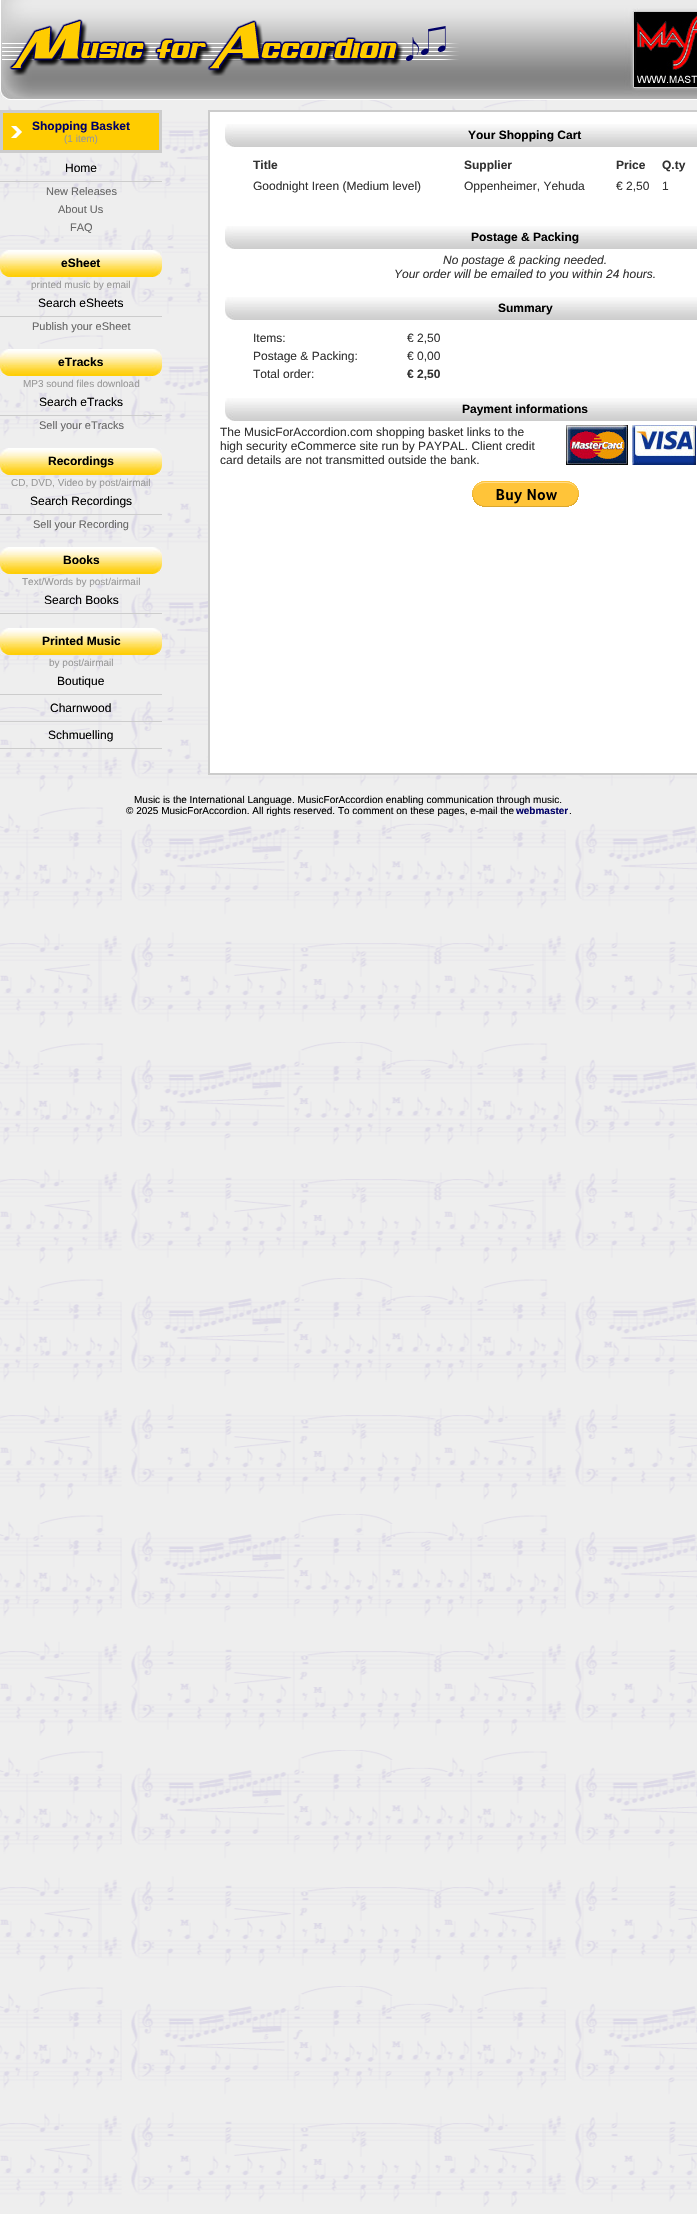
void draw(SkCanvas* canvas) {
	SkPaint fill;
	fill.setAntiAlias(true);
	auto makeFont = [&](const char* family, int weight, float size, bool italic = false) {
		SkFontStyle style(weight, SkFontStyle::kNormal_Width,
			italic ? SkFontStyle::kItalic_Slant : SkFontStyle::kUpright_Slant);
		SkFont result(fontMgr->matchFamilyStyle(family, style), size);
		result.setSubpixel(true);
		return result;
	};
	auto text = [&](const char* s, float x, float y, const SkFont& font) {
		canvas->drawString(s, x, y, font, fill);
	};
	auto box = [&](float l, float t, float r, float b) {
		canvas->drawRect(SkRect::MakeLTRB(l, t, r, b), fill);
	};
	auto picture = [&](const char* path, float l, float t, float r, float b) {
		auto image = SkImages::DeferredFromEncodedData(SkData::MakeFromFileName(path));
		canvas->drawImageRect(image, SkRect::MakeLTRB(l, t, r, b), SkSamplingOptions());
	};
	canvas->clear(0xFFEEEEEE);
	picture("image0.png", 0, 100, 697, 2207);
	picture("image1.png", 0, 0, 697, 100);
	picture("image2.png", 2, 19, 459, 76);
	picture("image3.png", 634, 12, 697, 87);
	fill.setColor(0xFFFFCC00);
	box(3, 113, 159, 150);
	picture("image4.png", 11, 126, 22, 138);
	fill.setStyle(SkPaint::kStroke_Style);
	fill.setStrokeWidth(3);
	fill.setColor(0xFFCCCCCC);
	canvas->drawRect(SkRect::MakeLTRB(1.5f, 111.5f, 160.5f, 151.5f), fill);
	fill.setStyle(SkPaint::kFill_Style);
	box(0, 181, 162, 182);
	picture("image5.png", 0, 250, 162, 277);
	box(0, 316, 162, 317);
	picture("image5.png", 0, 349, 162, 376);
	box(0, 415, 162, 416);
	picture("image5.png", 0, 448, 162, 475);
	box(0, 514, 162, 515);
	picture("image5.png", 0, 547, 162, 574);
	box(0, 613, 162, 614);
	picture("image5.png", 0, 628, 162, 655);
	box(0, 694, 162, 695);
	box(0, 721, 162, 722);
	box(0, 748, 162, 749);
	fill.setColor(0xFFFFFFFF);
	canvas->drawRect(SkRect::MakeLTRB(209, 111, 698, 774), fill);
	fill.setStyle(SkPaint::kStroke_Style);
	fill.setStrokeWidth(2);
	fill.setColor(0xFFCCCCCC);
	canvas->drawRect(SkRect::MakeLTRB(209, 111, 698, 774), fill);
	picture("image6.png", 225, 124, 697, 147);
	picture("image6.png", 225, 226, 697, 249);
	picture("image6.png", 225, 297, 697, 320);
	picture("image6.png", 225, 398, 697, 421);
	picture("image7.png", 566, 425, 628, 465);
	picture("image8.png", 632, 425, 696, 465);
	picture("image9.png", 472, 481, 579, 507);
	auto font1 = makeFont("Liberation Sans", 700, 12);
	fill.setStyle(SkPaint::kFill_Style);
	fill.setColor(0xFF000066);
	text("Shopping Basket", 32, 130, font1);
	auto font2 = makeFont("Liberation Sans", 400, 10);
	fill.setColor(0xFF999999);
	text("(1 item)", 64, 142, font2);
	auto font3 = makeFont("Liberation Sans", 400, 12);
	fill.setColor(0xFF000000);
	text("Home", 65, 172, font3);
	auto font4 = makeFont("Liberation Sans", 400, 11);
	fill.setColor(0xFF666666);
	text("New Releases", 46, 195, font4);
	text("About Us", 58, 213, font4);
	text("FAQ", 70, 231, font4);
	fill.setColor(0xFF000000);
	text("eSheet", 61, 267, font1);
	fill.setColor(0xFF999999);
	text("printed music by email", 31, 288, font2);
	fill.setColor(0xFF000000);
	text("Search eSheets", 38, 307, font3);
	fill.setColor(0xFF666666);
	text("Publish your eSheet", 32, 330, font4);
	fill.setColor(0xFF000000);
	text("eTracks", 58, 366, font1);
	fill.setColor(0xFF999999);
	text("MP3 sound files download", 23, 387, font2);
	fill.setColor(0xFF000000);
	text("Search eTracks", 39, 406, font3);
	fill.setColor(0xFF666666);
	text("Sell your eTracks", 39, 429, font4);
	fill.setColor(0xFF000000);
	text("Recordings", 48, 465, font1);
	fill.setColor(0xFF999999);
	text("CD, DVD, Video by post/airmail", 11, 486, font2);
	fill.setColor(0xFF000000);
	text("Search Recordings", 30, 505, font3);
	fill.setColor(0xFF666666);
	text("Sell your Recording", 33, 528, font4);
	fill.setColor(0xFF000000);
	text("Books", 63, 564, font1);
	fill.setColor(0xFF999999);
	text("Text/Words by post/airmail", 22, 585, font2);
	fill.setColor(0xFF000000);
	text("Search Books", 44, 604, font3);
	text("Printed Music", 42, 645, font1);
	fill.setColor(0xFF999999);
	text("by post/airmail", 49, 666, font2);
	fill.setColor(0xFF000000);
	text("Boutique", 57, 685, font3);
	text("Charnwood", 50, 712, font3);
	text("Schmuelling", 48, 739, font3);
	text("Your Shopping Cart", 468, 139, font1);
	fill.setColor(0xFF333333);
	text("Title", 253, 169, font1);
	text("Supplier", 464, 169, font1);
	text("Price", 616, 169, font1);
	text("Q.ty", 662, 169, font1);
	text("Goodnight Ireen (Medium level)", 253, 190, font3);
	text("Oppenheimer, Yehuda", 464, 190, font3);
	text("€ 2,50", 616, 190, font3);
	text("1", 662, 190, font3);
	fill.setColor(0xFF000000);
	text("Postage & Packing", 471, 241, font1);
	auto font5 = makeFont("Liberation Sans", 400, 12, true);
	fill.setColor(0xFF333333);
	text("No postage & packing needed.", 443, 264, font5);
	text("Your order will be emailed to you within 24 hours.", 394, 278, font5);
	fill.setColor(0xFF000000);
	text("Summary", 498, 312, font1);
	fill.setColor(0xFF333333);
	text("Items:", 253, 342, font3);
	text("€ 2,50", 407, 342, font3);
	text("Postage & Packing:", 253, 360, font3);
	text("€ 0,00", 407, 360, font3);
	text("Total order:", 253, 378, font3);
	text("€ 2,50", 407, 378, font1);
	fill.setColor(0xFF000000);
	text("Payment informations", 462, 413, font1);
	fill.setColor(0xFF333333);
	text("The MusicForAccordion.com shopping basket links to the", 220, 436, font3);
	text("high security eCommerce site run by PAYPAL. Client credit", 220, 450, font3);
	text("card details are not transmitted outside the bank.", 220, 464, font3);
	fill.setColor(0xFF000000);
	text("Music is the International Language. MusicForAccordion enabling communication through music.", 134, 803, font2);
	text("© 2025 MusicForAccordion. All rights reserved. To comment on these pages, e-mail the", 126, 814, font2);
	auto font6 = makeFont("Liberation Sans", 700, 10);
	fill.setColor(0xFF000066);
	text("webmaster", 516, 814, font6);
	fill.setColor(0xFF000000);
	text(".", 569, 814, font2);
}
